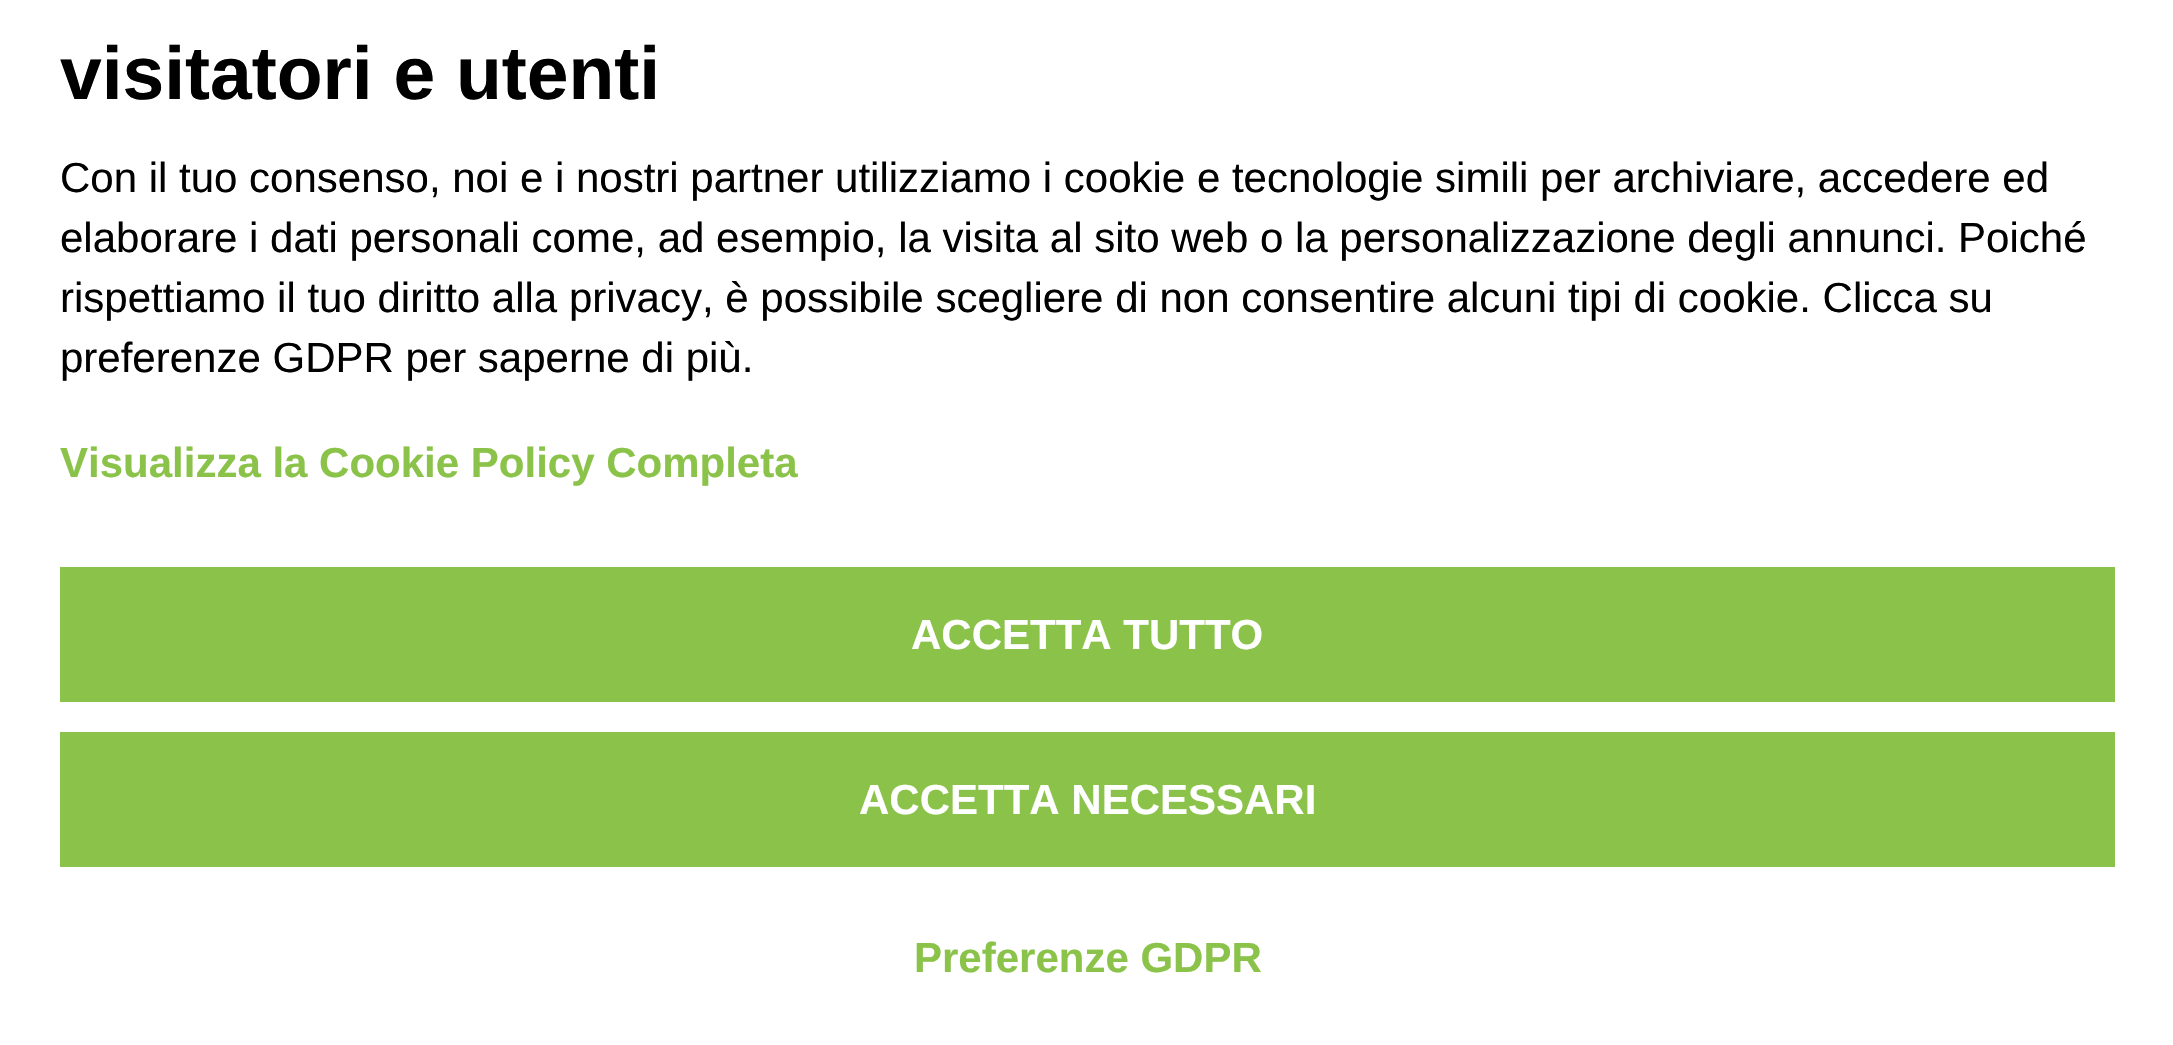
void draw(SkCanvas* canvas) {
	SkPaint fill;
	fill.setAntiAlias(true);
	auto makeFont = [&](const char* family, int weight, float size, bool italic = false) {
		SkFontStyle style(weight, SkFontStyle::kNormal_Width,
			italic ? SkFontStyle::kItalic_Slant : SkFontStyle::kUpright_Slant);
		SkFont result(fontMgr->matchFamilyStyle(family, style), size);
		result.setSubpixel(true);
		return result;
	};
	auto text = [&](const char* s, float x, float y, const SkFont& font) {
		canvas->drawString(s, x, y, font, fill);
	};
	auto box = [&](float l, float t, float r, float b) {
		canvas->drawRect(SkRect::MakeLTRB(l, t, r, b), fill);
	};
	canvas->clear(0xFFFFFFFF);
	fill.setColor(0xFF8BC34A);
	box(60, 567, 2115, 702);
	box(60, 732, 2115, 867);
	auto font1 = makeFont("Liberation Sans", 700, 75);
	fill.setColor(0xFF000000);
	text("visitatori e utenti", 60, 99, font1);
	auto font2 = makeFont("Liberation Sans", 400, 42);
	text("Con il tuo consenso, noi e i nostri partner utilizziamo i cookie e tecnologie simili per archiviare, accedere ed", 60, 192, font2);
	text("elaborare i dati personali come, ad esempio, la visita al sito web o la personalizzazione degli annunci. Poiché", 60, 252, font2);
	text("rispettiamo il tuo diritto alla privacy, è possibile scegliere di non consentire alcuni tipi di cookie. Clicca su", 60, 312, font2);
	text("preferenze GDPR per saperne di più.", 60, 372, font2);
	auto font3 = makeFont("Liberation Sans", 700, 42);
	fill.setColor(0xFF8BC34A);
	text("Visualizza la Cookie Policy Completa", 60, 477, font3);
	fill.setColor(0xFFFFFFFF);
	text("ACCETTA TUTTO", 911, 649, font3);
	text("ACCETTA NECESSARI", 859, 814, font3);
	fill.setColor(0xFF8BC34A);
	text("Preferenze GDPR", 914, 972, font3);
}
